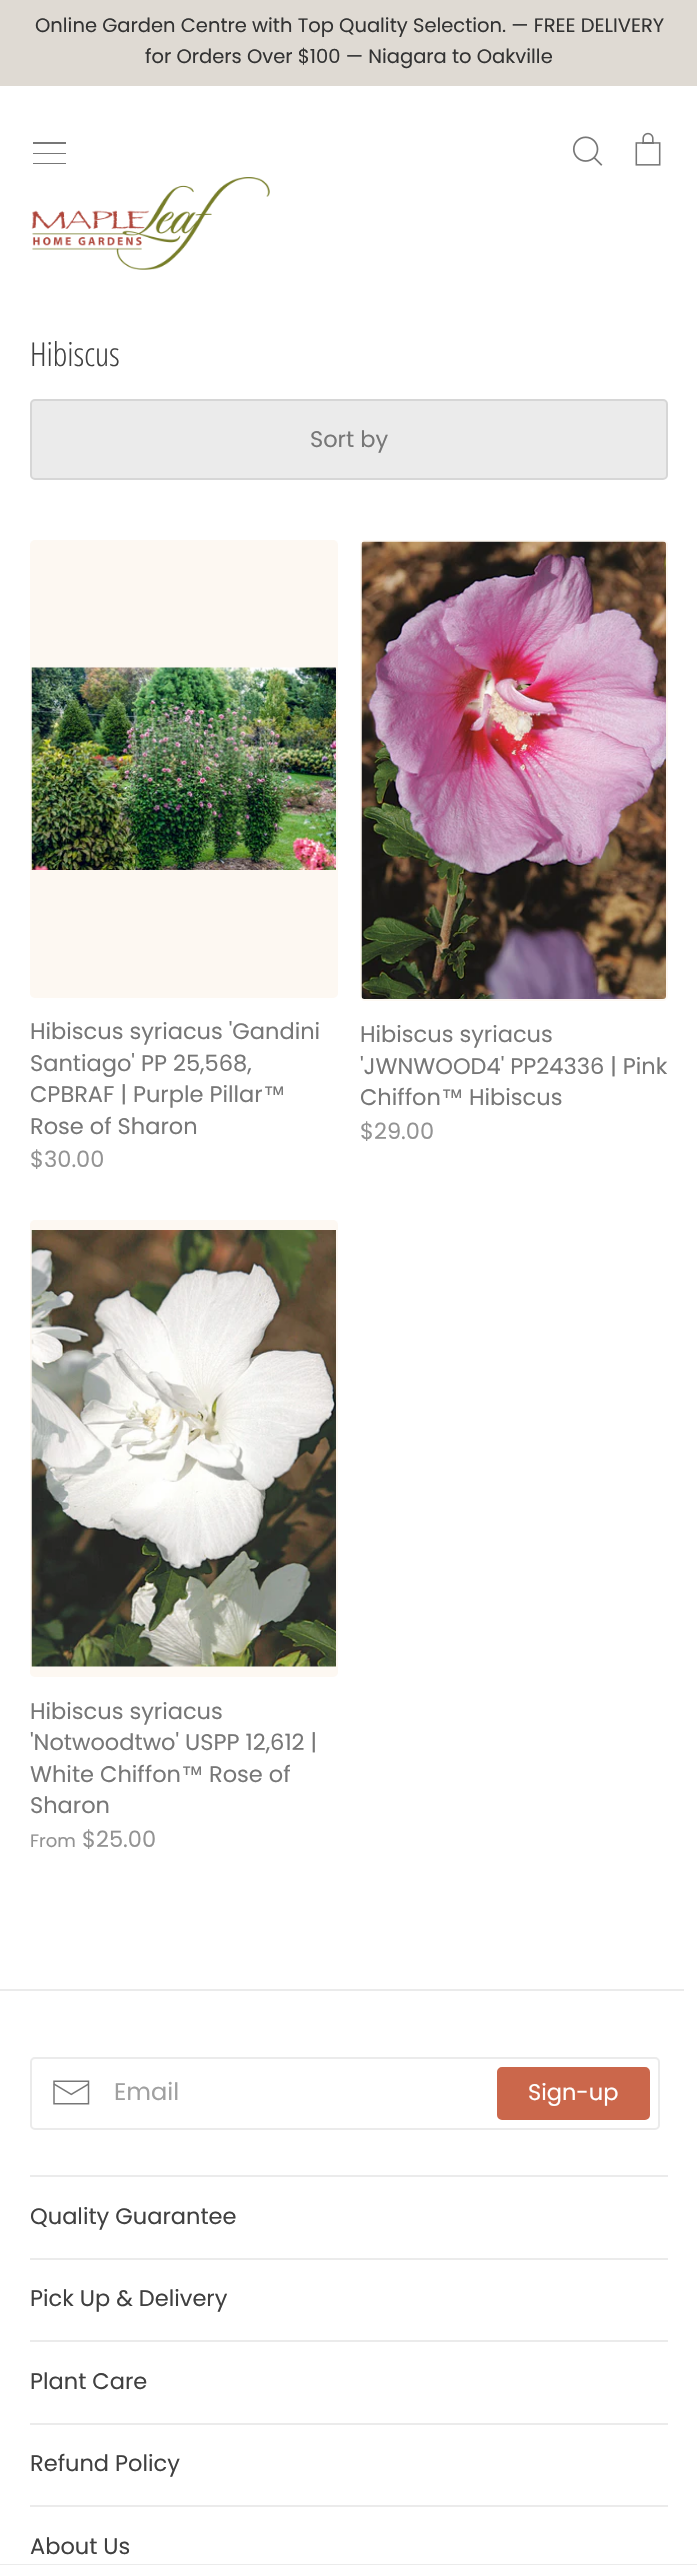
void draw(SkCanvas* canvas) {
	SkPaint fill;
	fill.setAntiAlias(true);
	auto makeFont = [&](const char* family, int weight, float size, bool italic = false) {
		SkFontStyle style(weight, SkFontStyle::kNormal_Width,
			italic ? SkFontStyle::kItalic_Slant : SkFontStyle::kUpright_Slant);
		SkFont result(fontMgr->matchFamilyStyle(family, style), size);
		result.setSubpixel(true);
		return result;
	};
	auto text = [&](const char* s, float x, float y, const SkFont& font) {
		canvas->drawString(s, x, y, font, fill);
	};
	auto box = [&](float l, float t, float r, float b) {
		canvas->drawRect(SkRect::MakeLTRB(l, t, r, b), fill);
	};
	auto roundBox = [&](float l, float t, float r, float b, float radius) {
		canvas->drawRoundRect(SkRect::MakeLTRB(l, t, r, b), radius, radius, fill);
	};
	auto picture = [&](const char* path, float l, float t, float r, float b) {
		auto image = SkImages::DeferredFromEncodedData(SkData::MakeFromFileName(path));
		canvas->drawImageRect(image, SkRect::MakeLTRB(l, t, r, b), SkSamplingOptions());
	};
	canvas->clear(0xFFFFFFFF);
	fill.setColor(0xFFDFDAD3);
	box(0, 0, 697, 86);
	fill.setColor(0xFF777777);
	box(33, 142, 66, 144);
	box(33, 153, 66, 154);
	box(33, 163, 66, 164);
	picture("image0.png", 572, 136, 603, 166);
	picture("image1.png", 635, 132, 661, 166);
	picture("image2.png", 31, 177, 270, 270);
	fill.setColor(0xFFEBEBEB);
	box(0, 2564, 697, 2565);
	canvas->drawRoundRect(SkRect::MakeLTRB(31, 400, 667, 479), 4, 4, fill);
	fill.setStyle(SkPaint::kStroke_Style);
	fill.setStrokeWidth(2);
	fill.setColor(0xFFD6D6D6);
	canvas->drawRoundRect(SkRect::MakeLTRB(31, 400, 667, 479), 4, 4, fill);
	fill.setStyle(SkPaint::kFill_Style);
	fill.setColor(0xFFFDF8F2);
	roundBox(30, 540, 338, 998, 5);
	picture("image3.png", 31, 667, 336, 870);
	roundBox(360, 540, 668, 1001, 5);
	picture("image4.png", 361, 541, 666, 999);
	roundBox(30, 1220, 338, 1677, 5);
	picture("image5.png", 31, 1230, 336, 1667);
	fill.setColor(0xFFEBEBEB);
	box(0, 1989, 684, 1991);
	fill.setStyle(SkPaint::kStroke_Style);
	canvas->drawRoundRect(SkRect::MakeLTRB(31, 2058, 659, 2129), 4, 4, fill);
	picture("image6.png", 53, 2080, 90, 2105);
	fill.setStyle(SkPaint::kFill_Style);
	fill.setColor(0xFFCB674B);
	canvas->drawRoundRect(SkRect::MakeLTRB(498, 2068, 649, 2119), 4, 4, fill);
	fill.setStyle(SkPaint::kStroke_Style);
	canvas->drawRoundRect(SkRect::MakeLTRB(498, 2068, 649, 2119), 4, 4, fill);
	fill.setStyle(SkPaint::kFill_Style);
	fill.setColor(0xFFEBEBEB);
	box(30, 2175, 668, 2177);
	box(30, 2258, 668, 2260);
	box(30, 2340, 668, 2342);
	box(30, 2423, 668, 2425);
	box(30, 2505, 668, 2507);
	auto font1 = makeFont("Poppins", 400, 19.5f);
	fill.setColor(0xFF333333);
	text("Online Garden Centre with Top Quality Selection. — FREE DELIVERY", 35, 32, font1);
	text("for Orders Over $100 — Niagara to Oakville", 145, 63, font1);
	auto font2 = makeFont("Open Sans Condensed", 300, 33);
	fill.setColor(0xFF404040);
	text("Hibiscus", 30, 366, font2);
	auto font3 = makeFont("Poppins", 400, 22.5f);
	fill.setColor(0xFF777777);
	text("Sort by", 310, 447, font3);
	text("Hibiscus syriacus 'Gandini", 30, 1039, font3);
	text("Santiago' PP 25,568,", 30, 1071, font3);
	text("CPBRAF | Purple Pillar", 30, 1102, font3);
	auto font4 = makeFont("Liberation Sans", 400, 22.5f);
	text("™", 263, 1102, font4);
	text("Rose of Sharon", 30, 1134, font3);
	fill.setColor(0xFF939393);
	text("$30.00", 30, 1167, font3);
	fill.setColor(0xFF777777);
	text("Hibiscus syriacus", 360, 1042, font3);
	text("'JWNWOOD4' PP24336 | Pink", 360, 1074, font3);
	text("Chiffon", 360, 1105, font3);
	text("™", 441, 1105, font4);
	text("Hibiscus", 469, 1105, font3);
	fill.setColor(0xFF939393);
	text("$29.00", 360, 1139, font3);
	fill.setColor(0xFF777777);
	text("Hibiscus syriacus", 30, 1719, font3);
	text("'Notwoodtwo' USPP 12,612 |", 30, 1750, font3);
	text("White Chiffon", 30, 1782, font3);
	text("™", 181, 1782, font4);
	text("Rose of", 209, 1782, font3);
	text("Sharon", 30, 1813, font3);
	auto font5 = makeFont("Poppins", 400, 18);
	fill.setColor(0xFF939393);
	text("From", 30, 1847, font5);
	text("$25.00", 82, 1847, font3);
	auto font6 = makeFont("Poppins", 400, 24);
	fill.setColor(0xFFA0A0A0);
	text("Email", 114, 2100, font6);
	fill.setColor(0xFFFFFFFF);
	text("Sign-up", 528, 2100, font3);
	fill.setColor(0xFF404040);
	text("Quality Guarantee", 30, 2224, font3);
	text("Pick Up & Delivery", 30, 2306, font3);
	text("Plant Care", 30, 2389, font3);
	text("Refund Policy", 30, 2471, font3);
	text("About Us", 30, 2554, font3);
}
